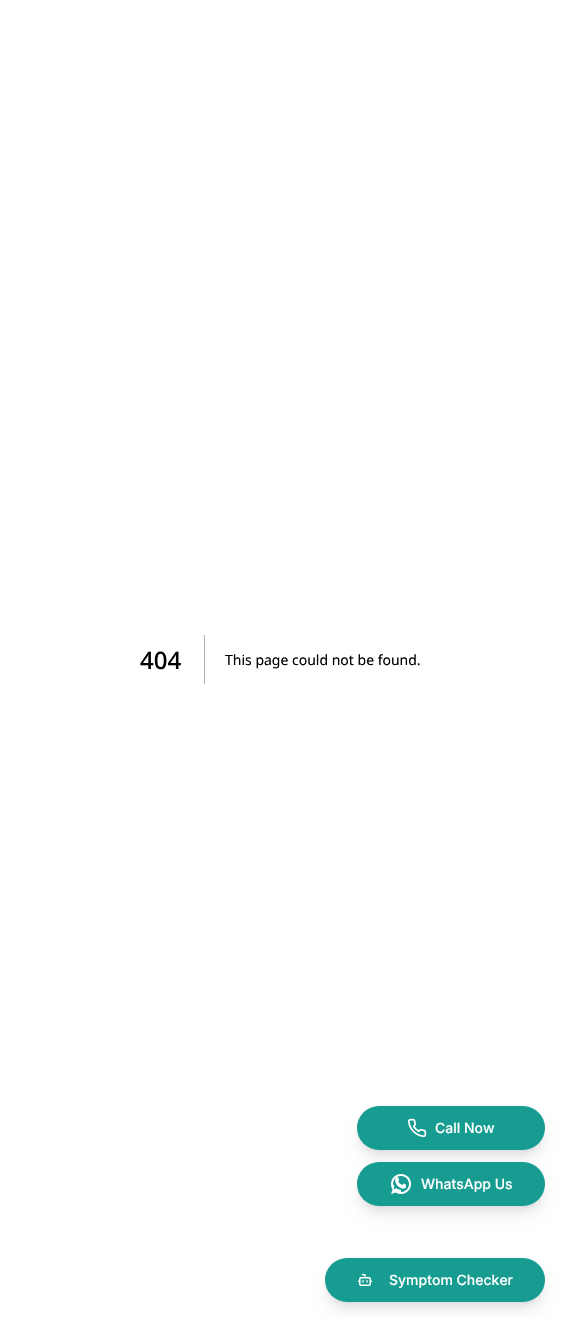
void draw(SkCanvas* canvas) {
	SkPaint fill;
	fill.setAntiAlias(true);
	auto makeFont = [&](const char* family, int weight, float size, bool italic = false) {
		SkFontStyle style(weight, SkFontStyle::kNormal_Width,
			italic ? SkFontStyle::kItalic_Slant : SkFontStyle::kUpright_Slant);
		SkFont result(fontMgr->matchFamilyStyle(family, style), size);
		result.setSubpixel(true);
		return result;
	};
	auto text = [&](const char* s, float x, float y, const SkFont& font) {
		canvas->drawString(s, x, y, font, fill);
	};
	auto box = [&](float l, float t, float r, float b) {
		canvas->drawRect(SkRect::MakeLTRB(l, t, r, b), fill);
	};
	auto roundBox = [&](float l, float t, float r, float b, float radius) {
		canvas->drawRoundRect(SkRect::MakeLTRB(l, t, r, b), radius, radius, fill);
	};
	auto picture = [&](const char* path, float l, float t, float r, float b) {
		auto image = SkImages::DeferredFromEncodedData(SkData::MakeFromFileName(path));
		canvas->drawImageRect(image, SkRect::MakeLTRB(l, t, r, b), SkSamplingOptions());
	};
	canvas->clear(0xFFFFFFFF);
	fill.setColor(0xFFB3B3B3);
	box(204, 635, 205, 684);
	fill.setColor(0x1A000000);
	fill.setMaskFilter(SkMaskFilter::MakeBlur(kNormal_SkBlurStyle, 3));
	canvas->drawRoundRect(SkRect::MakeLTRB(361, 1114, 541, 1150), 18, 18, fill);
	fill.setMaskFilter(nullptr);
	fill.setMaskFilter(SkMaskFilter::MakeBlur(kNormal_SkBlurStyle, 7.5f));
	canvas->drawRoundRect(SkRect::MakeLTRB(360, 1119, 542, 1157), 19, 19, fill);
	fill.setMaskFilter(nullptr);
	fill.setColor(0xFF169C91);
	roundBox(357, 1106, 545, 1150, 22);
	picture("image0.png", 407, 1118, 427, 1138);
	fill.setColor(0x1A000000);
	fill.setMaskFilter(SkMaskFilter::MakeBlur(kNormal_SkBlurStyle, 3));
	canvas->drawRoundRect(SkRect::MakeLTRB(361, 1170, 541, 1206), 18, 18, fill);
	fill.setMaskFilter(nullptr);
	fill.setMaskFilter(SkMaskFilter::MakeBlur(kNormal_SkBlurStyle, 7.5f));
	canvas->drawRoundRect(SkRect::MakeLTRB(360, 1175, 542, 1213), 19, 19, fill);
	fill.setMaskFilter(nullptr);
	fill.setColor(0xFF169C91);
	roundBox(357, 1162, 545, 1206, 22);
	picture("image1.png", 391, 1174, 411, 1194);
	fill.setColor(0x1A000000);
	fill.setMaskFilter(SkMaskFilter::MakeBlur(kNormal_SkBlurStyle, 3));
	canvas->drawRoundRect(SkRect::MakeLTRB(329, 1266, 541, 1302), 18, 18, fill);
	fill.setMaskFilter(nullptr);
	fill.setMaskFilter(SkMaskFilter::MakeBlur(kNormal_SkBlurStyle, 7.5f));
	canvas->drawRoundRect(SkRect::MakeLTRB(328, 1271, 542, 1309), 19, 19, fill);
	fill.setMaskFilter(nullptr);
	fill.setColor(0xFF169C91);
	roundBox(325, 1258, 545, 1302, 22);
	picture("image2.png", 357, 1274, 373, 1286);
	auto font1 = makeFont("Noto Sans", 500, 24);
	fill.setColor(0xFF000000);
	text("404", 140, 669, font1);
	auto font2 = makeFont("Noto Sans", 400, 14);
	text("This page could not be found.", 225, 665, font2);
	auto font3 = makeFont("Inter", 500, 14);
	fill.setColor(0xFFFFFFFF);
	text("Call Now", 435, 1133, font3);
	text("WhatsApp Us", 421, 1189, font3);
	text("Symptom Checker", 389, 1285, font3);
}
